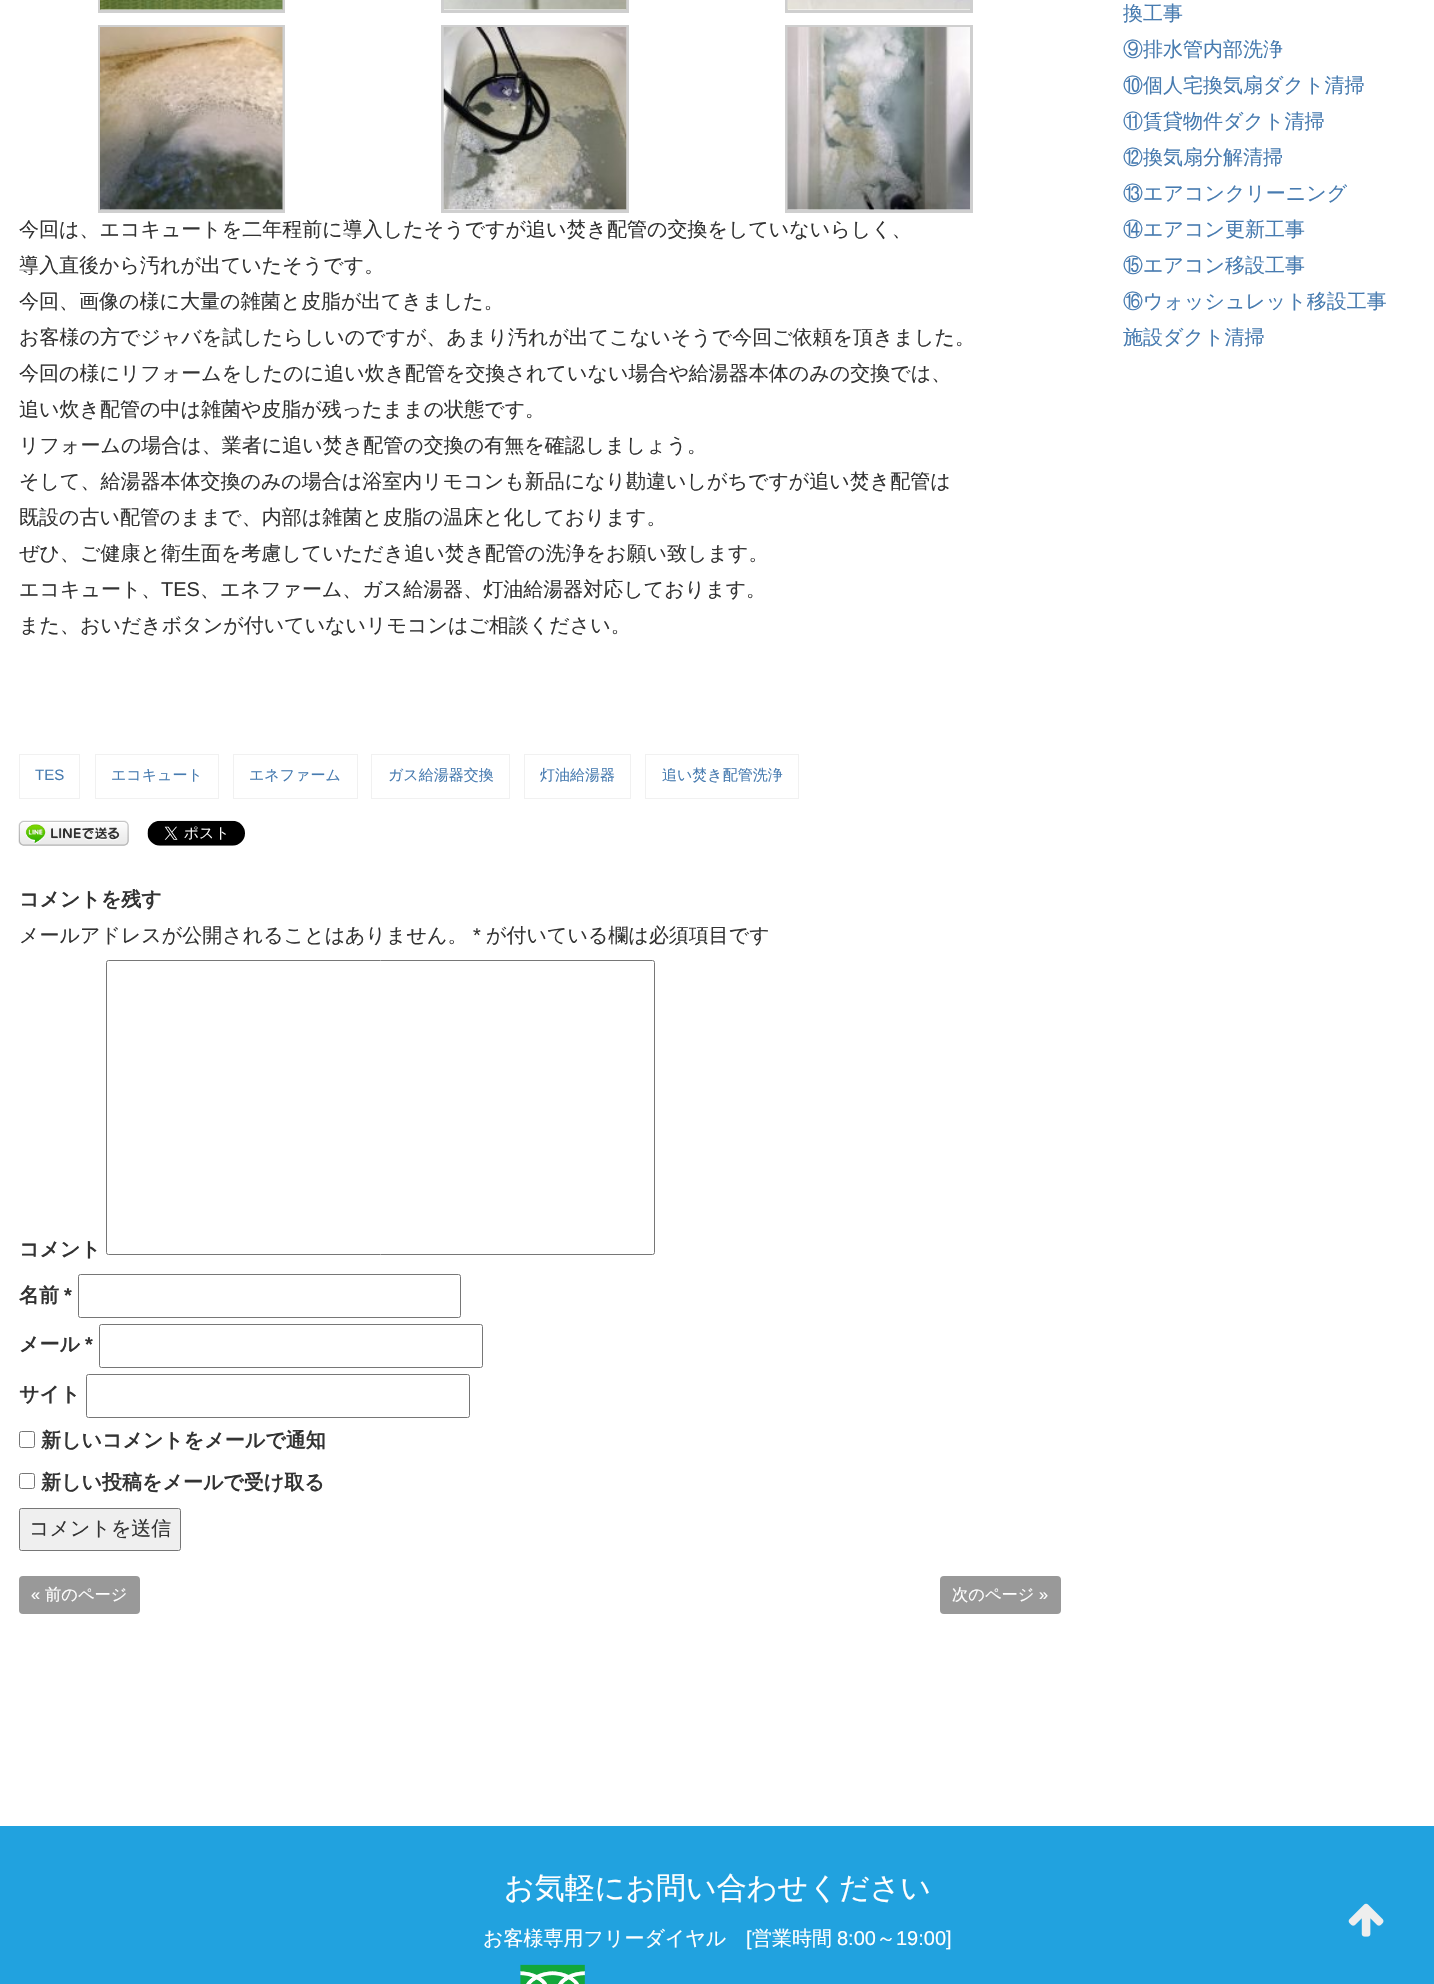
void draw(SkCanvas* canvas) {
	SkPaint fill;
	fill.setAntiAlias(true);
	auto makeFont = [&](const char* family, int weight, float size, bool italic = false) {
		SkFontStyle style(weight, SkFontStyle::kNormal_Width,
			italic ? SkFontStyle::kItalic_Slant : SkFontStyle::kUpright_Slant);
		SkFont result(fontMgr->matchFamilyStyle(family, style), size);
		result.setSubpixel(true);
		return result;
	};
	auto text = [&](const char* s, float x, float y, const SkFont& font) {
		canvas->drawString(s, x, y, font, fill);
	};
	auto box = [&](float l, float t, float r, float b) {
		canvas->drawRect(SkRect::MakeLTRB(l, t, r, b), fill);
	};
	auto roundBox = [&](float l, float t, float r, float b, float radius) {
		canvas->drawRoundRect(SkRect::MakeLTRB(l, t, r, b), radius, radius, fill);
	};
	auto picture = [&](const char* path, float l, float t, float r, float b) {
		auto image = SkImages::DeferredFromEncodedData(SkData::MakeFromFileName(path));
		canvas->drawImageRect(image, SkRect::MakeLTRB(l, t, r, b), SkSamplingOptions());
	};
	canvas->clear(0xFFFFFFFF);
	fill.setStyle(SkPaint::kStroke_Style);
	fill.setStrokeWidth(3);
	fill.setColor(0xFFCFCFCF);
	canvas->drawRect(SkRect::MakeLTRB(99.5f, -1.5f, 283.5f, 11.5f), fill);
	picture("image0.png", 100, 0, 283, 10);
	canvas->drawRect(SkRect::MakeLTRB(442.5f, -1.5f, 627.5f, 11.5f), fill);
	picture("image1.png", 444, 0, 627, 10);
	canvas->drawRect(SkRect::MakeLTRB(786.5f, -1.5f, 971.5f, 11.5f), fill);
	picture("image2.png", 787, 0, 970, 10);
	canvas->drawRect(SkRect::MakeLTRB(99.5f, 26.5f, 283.5f, 211.5f), fill);
	picture("image3.png", 100, 27, 283, 210);
	canvas->drawRect(SkRect::MakeLTRB(442.5f, 26.5f, 627.5f, 211.5f), fill);
	picture("image4.png", 443, 27, 627, 210);
	canvas->drawRect(SkRect::MakeLTRB(786.5f, 26.5f, 971.5f, 211.5f), fill);
	picture("image5.png", 787, 27, 970, 210);
	fill.setStrokeWidth(1);
	fill.setColor(0xFFF1F1F1);
	canvas->drawRect(SkRect::MakeLTRB(19.5f, 754.5f, 79.5f, 798.5f), fill);
	canvas->drawRect(SkRect::MakeLTRB(95.5f, 754.5f, 218.5f, 798.5f), fill);
	canvas->drawRect(SkRect::MakeLTRB(233.5f, 754.5f, 357.5f, 798.5f), fill);
	canvas->drawRect(SkRect::MakeLTRB(371.5f, 754.5f, 509.5f, 798.5f), fill);
	canvas->drawRect(SkRect::MakeLTRB(524.5f, 754.5f, 630.5f, 798.5f), fill);
	canvas->drawRect(SkRect::MakeLTRB(645.5f, 754.5f, 798.5f, 798.5f), fill);
	picture("image6.png", 18, 820, 129, 846);
	picture("image7.png", 147, 820, 245, 846);
	fill.setColor(0xFF767676);
	canvas->drawRoundRect(SkRect::MakeLTRB(106.5f, 960.5f, 654.5f, 1254.5f), 2, 2, fill);
	canvas->drawRoundRect(SkRect::MakeLTRB(78.5f, 1274.5f, 460.5f, 1317.5f), 2, 2, fill);
	canvas->drawRoundRect(SkRect::MakeLTRB(99.5f, 1324.5f, 482.5f, 1367.5f), 2, 2, fill);
	canvas->drawRoundRect(SkRect::MakeLTRB(86.5f, 1374.5f, 469.5f, 1417.5f), 2, 2, fill);
	canvas->drawRoundRect(SkRect::MakeLTRB(19.5f, 1431.5f, 34.5f, 1447.5f), 2, 2, fill);
	canvas->drawRoundRect(SkRect::MakeLTRB(19.5f, 1473.5f, 34.5f, 1488.5f), 2, 2, fill);
	fill.setStyle(SkPaint::kFill_Style);
	fill.setColor(0xFFEFEFEF);
	canvas->drawRoundRect(SkRect::MakeLTRB(19.5f, 1508.5f, 180.5f, 1550.5f), 2, 2, fill);
	fill.setStyle(SkPaint::kStroke_Style);
	fill.setColor(0xFF767676);
	canvas->drawRoundRect(SkRect::MakeLTRB(19.5f, 1508.5f, 180.5f, 1550.5f), 2, 2, fill);
	fill.setStyle(SkPaint::kFill_Style);
	fill.setColor(0xFF999999);
	roundBox(19, 1576, 140, 1614, 4);
	roundBox(940, 1576, 1061, 1614, 4);
	fill.setColor(0xFF21A2DF);
	box(0, 1826, 1434, 1984);
	picture("image8.png", 520, 1964, 585, 1984);
	picture("image9.png", 1348, 1903, 1384, 1937);
	auto font1 = makeFont("WenQuanYi Zen Hei", 500, 20);
	fill.setColor(0xFF477BB0);
	text("換工事", 1123, 20, font1);
	text("⑨排水管内部洗浄", 1123, 56, font1);
	text("⑩個人宅換気扇ダクト清掃", 1123, 92, font1);
	text("⑪賃貸物件ダクト清掃", 1123, 128, font1);
	text("⑫換気扇分解清掃", 1123, 164, font1);
	text("⑬エアコンクリーニング", 1123, 200, font1);
	text("⑭エアコン更新工事", 1123, 236, font1);
	text("⑮エアコン移設工事", 1123, 272, font1);
	text("⑯ウォッシュレット移設工事", 1123, 308, font1);
	text("施設ダクト清掃", 1123, 344, font1);
	fill.setColor(0xFF333333);
	text("今回は、エコキュートを二年程前に導入したそうですが追い焚き配管の交換をしていないらしく、", 19, 236, font1);
	text("導入直後から汚れが出ていたそうです。", 19, 272, font1);
	text("今回、画像の様に大量の雑菌と皮脂が出てきました。", 19, 308, font1);
	text("お客様の方でジャバを試したらしいのですが、あまり汚れが出てこないそうで今回ご依頼を頂きました。", 19, 344, font1);
	text("今回の様にリフォームをしたのに追い炊き配管を交換されていない場合や給湯器本体のみの交換では、", 19, 380, font1);
	text("追い炊き配管の中は雑菌や皮脂が残ったままの状態です。", 19, 416, font1);
	text("リフォームの場合は、業者に追い焚き配管の交換の有無を確認しましょう。", 19, 452, font1);
	text("そして、給湯器本体交換のみの場合は浴室内リモコンも新品になり勘違いしがちですが追い焚き配管は", 19, 488, font1);
	text("既設の古い配管のままで、内部は雑菌と皮脂の温床と化しております。", 19, 524, font1);
	text("ぜひ、ご健康と衛生面を考慮していただき追い焚き配管の洗浄をお願い致します。", 19, 560, font1);
	text("エコキュート、", 19, 596, font1);
	auto font2 = makeFont("Liberation Sans", 400, 20);
	text("TES", 161, 596, font2);
	text("、エネファーム、ガス給湯器、灯油給湯器対応しております。", 200, 596, font1);
	text("また、おいだきボタンが付いていないリモコンはご相談ください。", 19, 632, font1);
	auto font3 = makeFont("Liberation Sans", 400, 15);
	fill.setColor(0xFF477BB0);
	text("TES", 35, 780, font3);
	auto font4 = makeFont("WenQuanYi Zen Hei", 500, 15);
	text("エコキュート", 111, 780, font4);
	text("エネファーム", 249, 780, font4);
	text("ガス給湯器交換", 388, 780, font4);
	text("灯油給湯器", 540, 780, font4);
	text("追い焚き配管洗浄", 662, 780, font4);
	auto font5 = makeFont("WenQuanYi Zen Hei", 700, 20);
	fill.setColor(0xFF333333);
	text("コメントを残す", 19, 906, font5);
	text("メールアドレスが公開されることはありません。", 19, 942, font1);
	text("*", 473, 942, font2);
	text("が付いている欄は必須項目です", 486, 942, font1);
	text("コメント", 19, 1256, font5);
	text("名前", 19, 1302, font5);
	auto font6 = makeFont("Liberation Sans", 700, 20);
	text("*", 64, 1302, font6);
	text("メール", 19, 1351, font5);
	text("*", 85, 1351, font6);
	text("サイト", 19, 1401, font5);
	text("新しいコメントをメールで通知", 41, 1447, font5);
	text("新しい投稿をメールで受け取る", 41, 1489, font5);
	text("コメントを送信", 29, 1535, font1);
	auto font7 = makeFont("Liberation Sans", 400, 16.25f);
	fill.setColor(0xFFFFFFFF);
	text("«", 31, 1600, font7);
	auto font8 = makeFont("WenQuanYi Zen Hei", 500, 16.25f);
	text("前のページ", 45, 1600, font8);
	text("次のページ", 952, 1600, font8);
	text("»", 1039, 1600, font7);
	auto font9 = makeFont("WenQuanYi Zen Hei", 500, 30);
	text("お気軽にお問い合わせください", 504, 1898, font9);
	text("お客様専用フリーダイヤル", 483, 1945, font1);
	text("[", 746, 1945, font2);
	text("営業時間", 752, 1945, font1);
	text("8:00", 837, 1945, font2);
	text("～", 876, 1945, font1);
	text("19:00]", 896, 1945, font2);
}
